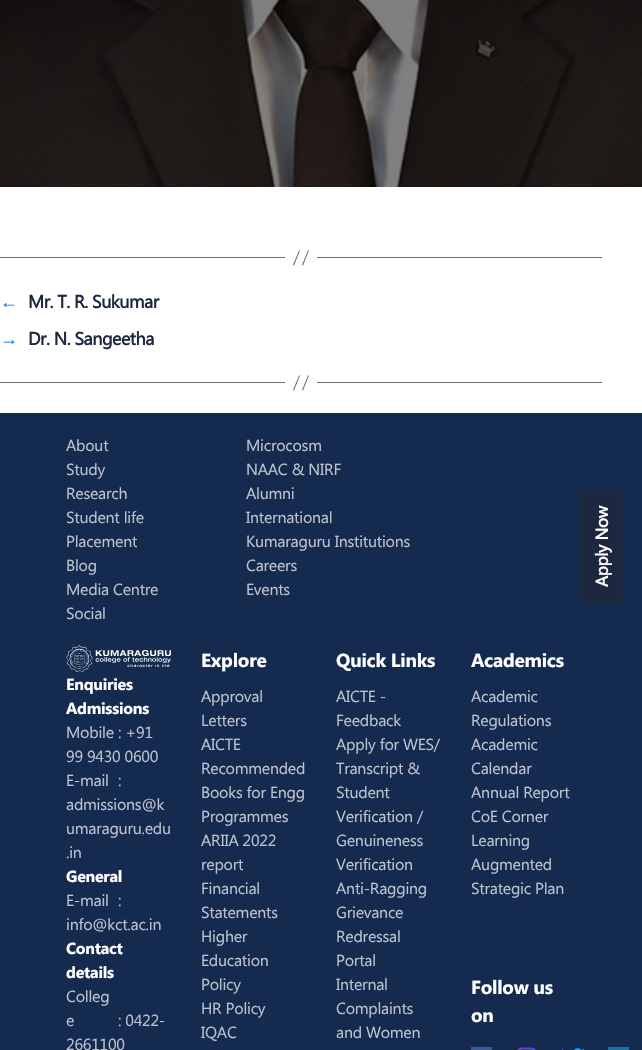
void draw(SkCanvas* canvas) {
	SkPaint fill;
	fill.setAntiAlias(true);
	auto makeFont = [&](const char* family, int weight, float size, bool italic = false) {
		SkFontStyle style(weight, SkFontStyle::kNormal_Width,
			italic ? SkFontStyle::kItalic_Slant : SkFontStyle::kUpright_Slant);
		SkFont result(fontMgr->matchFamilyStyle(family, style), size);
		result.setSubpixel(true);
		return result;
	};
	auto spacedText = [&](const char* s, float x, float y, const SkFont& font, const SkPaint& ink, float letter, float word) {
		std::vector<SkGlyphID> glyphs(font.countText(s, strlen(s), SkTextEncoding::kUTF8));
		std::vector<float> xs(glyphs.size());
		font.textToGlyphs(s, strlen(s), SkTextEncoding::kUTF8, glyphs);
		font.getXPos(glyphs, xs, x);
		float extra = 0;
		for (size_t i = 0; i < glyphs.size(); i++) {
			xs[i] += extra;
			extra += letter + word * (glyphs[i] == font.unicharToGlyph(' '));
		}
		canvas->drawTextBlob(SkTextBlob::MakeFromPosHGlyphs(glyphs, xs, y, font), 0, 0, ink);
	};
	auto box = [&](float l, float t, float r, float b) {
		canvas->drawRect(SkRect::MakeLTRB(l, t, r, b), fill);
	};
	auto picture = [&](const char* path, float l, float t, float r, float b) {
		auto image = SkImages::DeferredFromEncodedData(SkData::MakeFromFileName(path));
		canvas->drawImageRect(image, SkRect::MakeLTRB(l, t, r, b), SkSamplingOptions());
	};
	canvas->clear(0xFFFFFFFF);
	picture("image0.png", 0, 0, 642, 187);
	fill.setColor(0xFF6D6D6D);
	box(317, 257, 602, 258);
	box(0, 257, 285, 258);
	canvas->drawPath(SkPathBuilder().moveTo(299, 250.5f).lineTo(300, 250.5f).lineTo(294, 265.5f).lineTo(293, 265).close().moveTo(308, 250.5f).lineTo(309, 250.5f).lineTo(303, 265.5f).lineTo(302, 265).close().detach(), fill);
	box(317, 382, 602, 383);
	box(0, 382, 285, 383);
	canvas->drawPath(SkPathBuilder().moveTo(299, 375.5f).lineTo(300, 375.5f).lineTo(294, 390.5f).lineTo(293, 390).close().moveTo(308, 375.5f).lineTo(309, 375.5f).lineTo(303, 390.5f).lineTo(302, 390).close().detach(), fill);
	fill.setColor(0xFF142A4F);
	box(0, 413, 642, 1050);
	picture("image1.png", 66, 645, 171, 672);
	fill.setColor(0xFF3B5998);
	box(471, 1047, 492, 1050);
	picture("image2.png", 517, 1047, 536, 1050);
	picture("image3.png", 562, 1048, 585, 1050);
	fill.setColor(0xFF0E76A8);
	box(608, 1047, 629, 1050);
	fill.setColor(0xFF1B2840);
	box(580, 490, 623, 603);
	auto font1 = makeFont("Liberation Sans", 700, 18);
	fill.setColor(0xFF007BFF);
	spacedText("←", 0, 308, font1, fill, -0.5f, 0);
	auto font2 = makeFont("Segoe UI", 700, 18);
	fill.setColor(0xFF1B2840);
	spacedText("Mr. T. R. Sukumar", 28, 308, font2, fill, -0.5f, 0);
	fill.setColor(0xFF007BFF);
	spacedText("→", 0, 345, font1, fill, -0.5f, 0);
	fill.setColor(0xFF1B2840);
	spacedText("Dr. N. Sangeetha", 28, 345, font2, fill, -0.5f, 0);
	auto font3 = makeFont("Segoe UI", 400, 16);
	fill.setColor(0xFFBDC3CE);
	spacedText("About", 66, 451, font3, fill, -0.25f, 0);
	spacedText("Microcosm", 246, 451, font3, fill, -0.25f, 0);
	spacedText("Study", 66, 475, font3, fill, -0.25f, 0);
	spacedText("NAAC & NIRF", 246, 475, font3, fill, -0.25f, 0);
	spacedText("Research", 66, 499, font3, fill, -0.25f, 0);
	spacedText("Alumni", 246, 499, font3, fill, -0.25f, 0);
	spacedText("Student life", 66, 523, font3, fill, -0.25f, 0);
	spacedText("International", 246, 523, font3, fill, -0.25f, 0);
	spacedText("Placement", 66, 547, font3, fill, -0.25f, 0);
	spacedText("Kumaraguru Institutions", 246, 547, font3, fill, -0.25f, 0);
	spacedText("Blog", 66, 571, font3, fill, -0.25f, 0);
	spacedText("Careers", 246, 571, font3, fill, -0.25f, 0);
	spacedText("Media Centre", 66, 595, font3, fill, -0.25f, 0);
	spacedText("Events", 246, 595, font3, fill, -0.25f, 0);
	spacedText("Social", 66, 619, font3, fill, -0.25f, 0);
	auto font4 = makeFont("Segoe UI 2", 700, 16);
	fill.setColor(0xFFFFFFFF);
	spacedText("Enquiries", 66, 690, font4, fill, -0.25f, 0);
	spacedText("Admissions", 66, 714, font4, fill, -0.25f, 0);
	fill.setColor(0xFFBDC3CE);
	spacedText("Mobile", 66, 738, font3, fill, -0.25f, 0);
	spacedText(": +91", 118, 738, font3, fill, -0.25f, 0);
	spacedText("99 9430 0600", 66, 762, font3, fill, -0.25f, 0);
	spacedText("E-mail", 66, 786, font3, fill, -0.25f, 0);
	spacedText(":", 118, 786, font3, fill, -0.25f, 0);
	spacedText("admissions@k", 66, 810, font3, fill, -0.25f, 0);
	spacedText("umaraguru.edu", 66, 834, font3, fill, -0.25f, 0);
	spacedText(".in", 66, 858, font3, fill, -0.25f, 0);
	fill.setColor(0xFFFFFFFF);
	spacedText("General", 66, 882, font4, fill, -0.25f, 0);
	fill.setColor(0xFFBDC3CE);
	spacedText("E-mail", 66, 906, font3, fill, -0.25f, 0);
	spacedText(":", 118, 906, font3, fill, -0.25f, 0);
	spacedText("info@kct.ac.in", 66, 930, font3, fill, -0.25f, 0);
	fill.setColor(0xFFFFFFFF);
	spacedText("Contact", 66, 954, font4, fill, -0.25f, 0);
	spacedText("details", 66, 978, font4, fill, -0.25f, 0);
	fill.setColor(0xFFBDC3CE);
	spacedText("Colleg", 66, 1002, font3, fill, -0.25f, 0);
	spacedText("e", 66, 1026, font3, fill, -0.25f, 0);
	spacedText(": 0422-", 118, 1026, font3, fill, -0.25f, 0);
	spacedText("2661100", 66, 1050, font3, fill, -0.25f, 0);
	auto font5 = makeFont("Segoe UI 2", 700, 19);
	fill.setColor(0xFFFFFFFF);
	spacedText("Explore", 201, 667, font5, fill, -0.25f, 0);
	fill.setColor(0xFFBDC3CE);
	spacedText("Approval", 201, 702, font3, fill, -0.25f, 0);
	spacedText("Letters", 201, 726, font3, fill, -0.25f, 0);
	spacedText("AICTE", 201, 750, font3, fill, -0.25f, 0);
	spacedText("Recommended", 201, 774, font3, fill, -0.25f, 0);
	spacedText("Books for Engg", 201, 798, font3, fill, -0.25f, 0);
	spacedText("Programmes", 201, 822, font3, fill, -0.25f, 0);
	spacedText("ARIIA 2022", 201, 846, font3, fill, -0.25f, 0);
	spacedText("report", 201, 870, font3, fill, -0.25f, 0);
	spacedText("Financial", 201, 894, font3, fill, -0.25f, 0);
	spacedText("Statements", 201, 918, font3, fill, -0.25f, 0);
	spacedText("Higher", 201, 942, font3, fill, -0.25f, 0);
	spacedText("Education", 201, 966, font3, fill, -0.25f, 0);
	spacedText("Policy", 201, 990, font3, fill, -0.25f, 0);
	spacedText("HR Policy", 201, 1014, font3, fill, -0.25f, 0);
	spacedText("IQAC", 201, 1038, font3, fill, -0.25f, 0);
	fill.setColor(0xFFFFFFFF);
	spacedText("Quick Links", 336, 667, font5, fill, -0.25f, 0);
	fill.setColor(0xFFBDC3CE);
	spacedText("AICTE -", 336, 702, font3, fill, -0.25f, 0);
	spacedText("Feedback", 336, 726, font3, fill, -0.25f, 0);
	spacedText("Apply for WES/", 336, 750, font3, fill, -0.25f, 0);
	spacedText("Transcript &", 336, 774, font3, fill, -0.25f, 0);
	spacedText("Student", 336, 798, font3, fill, -0.25f, 0);
	spacedText("Verification /", 336, 822, font3, fill, -0.25f, 0);
	spacedText("Genuineness", 336, 846, font3, fill, -0.25f, 0);
	spacedText("Verification", 336, 870, font3, fill, -0.25f, 0);
	spacedText("Anti-Ragging", 336, 894, font3, fill, -0.25f, 0);
	spacedText("Grievance", 336, 918, font3, fill, -0.25f, 0);
	spacedText("Redressal", 336, 942, font3, fill, -0.25f, 0);
	spacedText("Portal", 336, 966, font3, fill, -0.25f, 0);
	spacedText("Internal", 336, 990, font3, fill, -0.25f, 0);
	spacedText("Complaints", 336, 1014, font3, fill, -0.25f, 0);
	spacedText("and Women", 336, 1038, font3, fill, -0.25f, 0);
	fill.setColor(0xFFFFFFFF);
	spacedText("Academics", 471, 667, font5, fill, -0.25f, 0);
	fill.setColor(0xFFBDC3CE);
	spacedText("Academic", 471, 702, font3, fill, -0.25f, 0);
	spacedText("Regulations", 471, 726, font3, fill, -0.25f, 0);
	spacedText("Academic", 471, 750, font3, fill, -0.25f, 0);
	spacedText("Calendar", 471, 774, font3, fill, -0.25f, 0);
	spacedText("Annual Report", 471, 798, font3, fill, -0.25f, 0);
	spacedText("CoE Corner", 471, 822, font3, fill, -0.25f, 0);
	spacedText("Learning", 471, 846, font3, fill, -0.25f, 0);
	spacedText("Augmented", 471, 870, font3, fill, -0.25f, 0);
	spacedText("Strategic Plan", 471, 894, font3, fill, -0.25f, 0);
	fill.setColor(0xFFFFFFFF);
	spacedText("Follow us", 471, 994, font5, fill, -0.25f, 0);
	spacedText("on", 471, 1022, font5, fill, -0.25f, 0);
	auto font6 = makeFont("Segoe UI", 700, 17);
	canvas->save();
	canvas->rotate(-90, 608, 587);
	spacedText("Apply Now", 608, 587, font6, fill, -0.25f, 0);
	canvas->restore();
}
